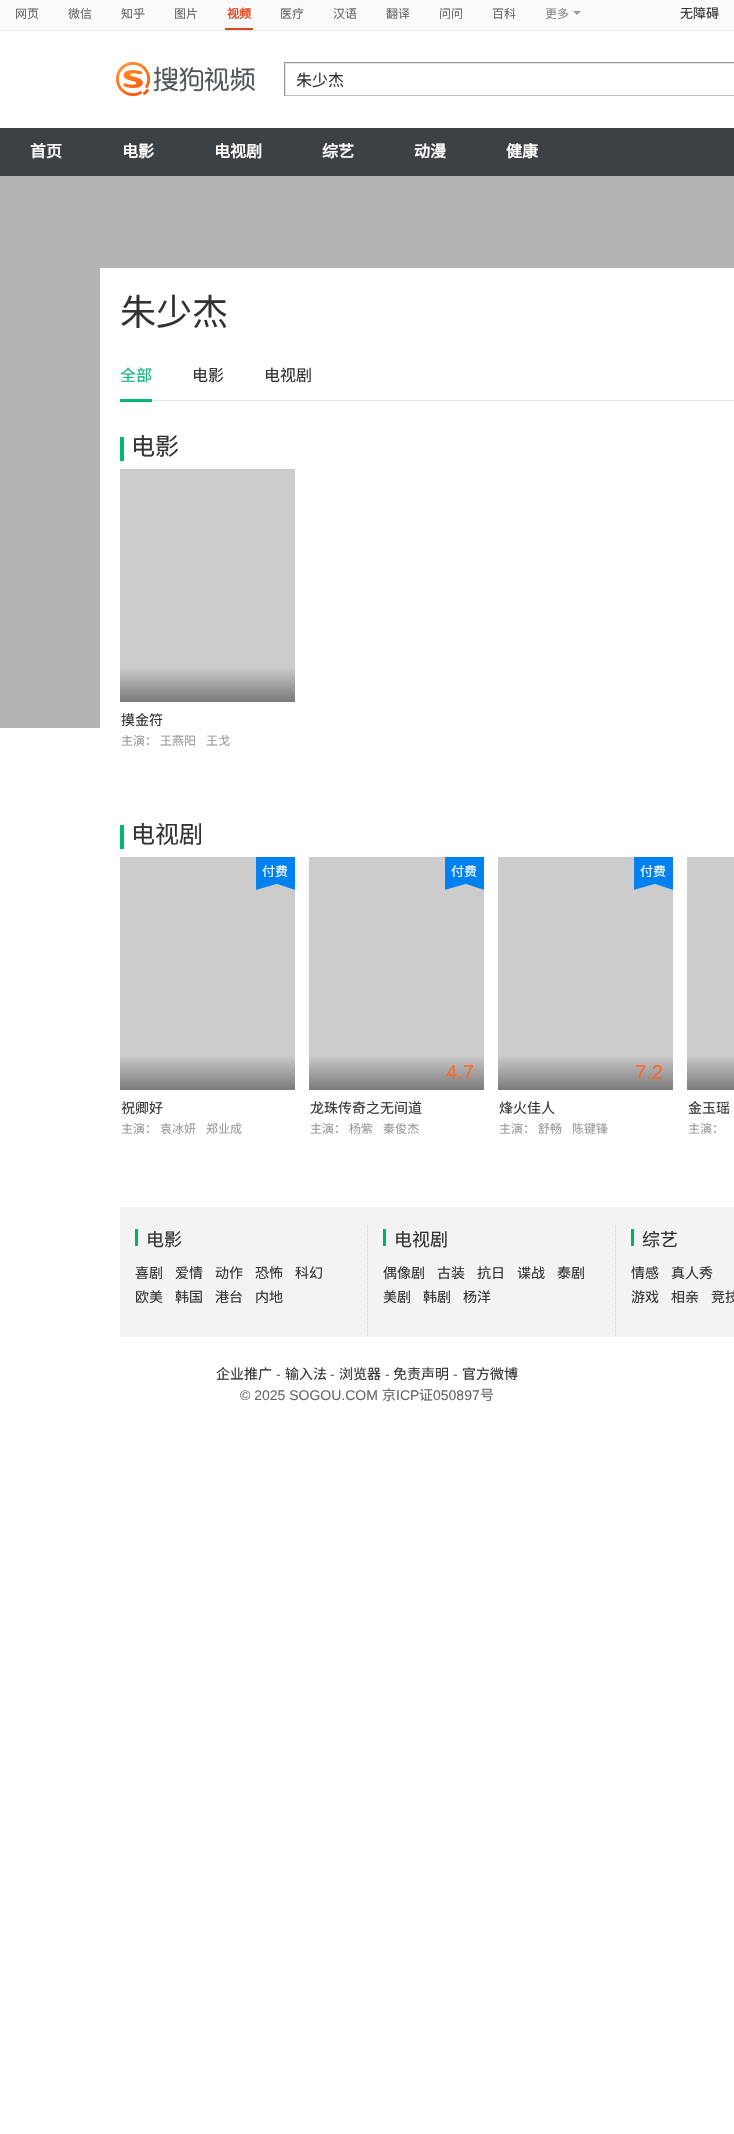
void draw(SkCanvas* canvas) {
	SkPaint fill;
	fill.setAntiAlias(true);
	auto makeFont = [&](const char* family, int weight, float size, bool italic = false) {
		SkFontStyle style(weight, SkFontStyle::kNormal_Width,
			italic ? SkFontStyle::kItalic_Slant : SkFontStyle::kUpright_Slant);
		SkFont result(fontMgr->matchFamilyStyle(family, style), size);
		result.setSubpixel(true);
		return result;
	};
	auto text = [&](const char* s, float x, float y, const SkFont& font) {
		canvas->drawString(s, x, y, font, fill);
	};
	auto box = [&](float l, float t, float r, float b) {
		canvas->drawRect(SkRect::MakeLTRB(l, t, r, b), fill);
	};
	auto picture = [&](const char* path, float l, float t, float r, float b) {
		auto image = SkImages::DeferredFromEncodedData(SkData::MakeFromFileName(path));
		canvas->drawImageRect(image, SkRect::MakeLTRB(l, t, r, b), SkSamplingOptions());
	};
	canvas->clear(0xFFFFFFFF);
	fill.setColor(0xFFFAFAFA);
	box(0, 0, 734, 30);
	fill.setColor(0xFFECECEC);
	box(0, 30, 734, 31);
	fill.setColor(0xFFE1451B);
	box(225, 28, 253, 30);
	fill.setColor(0xFF999999);
	canvas->drawPath(SkPathBuilder().moveTo(573, 11).lineTo(581, 11).lineTo(577, 15).close().detach(), fill);
	picture("image0.png", 116, 62, 255, 96);
	fill.setColor(0xFF979797);
	box(284, 62, 734, 63);
	fill.setColor(0xFFBCBCBC);
	box(284, 95, 734, 96);
	fill.setColor(0xFF979797);
	box(284, 62, 285, 96);
	fill.setColor(0xFFE5E5E5);
	box(285, 63, 734, 64);
	box(285, 63, 286, 95);
	fill.setColor(0xFF3C4145);
	box(0, 128, 734, 176);
	fill.setColor(0xFFB3B3B3);
	box(0, 176, 734, 728);
	fill.setColor(0xFFFFFFFF);
	box(100, 268, 734, 728);
	fill.setColor(0xFFE5E5E5);
	box(152, 400, 734, 401);
	fill.setColor(0xFF04B872);
	box(120, 399, 152, 402);
	box(120, 437, 124, 461);
	fill.setColor(0xFFCCCCCC);
	box(120, 469, 295, 667);
	{
		const SkColor colors[] = {0xFFCCCCCC, 0xFF7A7A7A};
		const float stops[] = {0, 1};
		const SkPoint ends[] = {{120, 667}, {120, 702}};
		fill.setShader(SkGradientShader::MakeLinear(ends, colors, stops, 2, SkTileMode::kClamp));
		fill.setAlpha(255);
	}
	box(120, 667, 295, 702);
	fill.setShader(nullptr);
	fill.setColor(0xFF04B872);
	box(120, 825, 124, 849);
	fill.setColor(0xFFCCCCCC);
	box(120, 857, 295, 1055);
	picture("image1.png", 256, 857, 295, 890);
	{
		const SkColor colors[] = {0xFFCCCCCC, 0xFF7A7A7A};
		const float stops[] = {0, 1};
		const SkPoint ends[] = {{120, 1055}, {120, 1090}};
		fill.setShader(SkGradientShader::MakeLinear(ends, colors, stops, 2, SkTileMode::kClamp));
		fill.setAlpha(255);
	}
	box(120, 1055, 295, 1090);
	fill.setShader(nullptr);
	fill.setColor(0xFFCCCCCC);
	box(309, 857, 484, 1055);
	picture("image1.png", 445, 857, 484, 890);
	{
		const SkColor colors[] = {0xFFCCCCCC, 0xFF7A7A7A};
		const float stops[] = {0, 1};
		const SkPoint ends[] = {{309, 1055}, {309, 1090}};
		fill.setShader(SkGradientShader::MakeLinear(ends, colors, stops, 2, SkTileMode::kClamp));
		fill.setAlpha(255);
	}
	box(309, 1055, 484, 1090);
	fill.setShader(nullptr);
	fill.setColor(0xFFCCCCCC);
	box(498, 857, 673, 1055);
	picture("image1.png", 634, 857, 673, 890);
	{
		const SkColor colors[] = {0xFFCCCCCC, 0xFF7A7A7A};
		const float stops[] = {0, 1};
		const SkPoint ends[] = {{498, 1055}, {498, 1090}};
		fill.setShader(SkGradientShader::MakeLinear(ends, colors, stops, 2, SkTileMode::kClamp));
		fill.setAlpha(255);
	}
	box(498, 1055, 673, 1090);
	fill.setShader(nullptr);
	fill.setColor(0xFFCCCCCC);
	box(687, 857, 734, 1055);
	{
		const SkColor colors[] = {0xFFCCCCCC, 0xFF7A7A7A};
		const float stops[] = {0, 1};
		const SkPoint ends[] = {{687, 1055}, {687, 1090}};
		fill.setShader(SkGradientShader::MakeLinear(ends, colors, stops, 2, SkTileMode::kClamp));
		fill.setAlpha(255);
	}
	box(687, 1055, 734, 1090);
	fill.setShader(nullptr);
	fill.setColor(0xFFF3F3F3);
	box(120, 1207, 734, 1337);
	fill.setColor(0xFF00B269);
	box(135, 1229, 138, 1246);
	canvas->save();
	canvas->clipRect(SkRect::MakeLTRB(120, 1207, 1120, 1337));
	fill.setStyle(SkPaint::kStroke_Style);
	fill.setStrokeWidth(1);
	fill.setColor(0xFFD0D0D0);
	fill.setPathEffect(SkDashPathEffect::Make({{1, 1}}, 0));
	canvas->drawPath(SkPathBuilder().moveTo(367.5f, 1225).lineTo(367.5f, 1346).detach(), fill);
	fill.setPathEffect(nullptr);
	canvas->restore();
	fill.setStyle(SkPaint::kFill_Style);
	fill.setColor(0xFF00B269);
	box(383, 1229, 386, 1246);
	canvas->save();
	canvas->clipRect(SkRect::MakeLTRB(120, 1207, 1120, 1337));
	fill.setStyle(SkPaint::kStroke_Style);
	fill.setColor(0xFFD0D0D0);
	fill.setPathEffect(SkDashPathEffect::Make({{1, 1}}, 0));
	canvas->drawPath(SkPathBuilder().moveTo(615.5f, 1225).lineTo(615.5f, 1346).detach(), fill);
	fill.setPathEffect(nullptr);
	canvas->restore();
	fill.setStyle(SkPaint::kFill_Style);
	fill.setColor(0xFF00B269);
	box(631, 1229, 634, 1246);
	auto font1 = makeFont("Noto Sans CJK SC", 400, 12);
	fill.setColor(0xFF666666);
	text("网页", 15, 18, font1);
	text("微信", 68, 18, font1);
	text("知乎", 121, 18, font1);
	text("图片", 174, 18, font1);
	auto font2 = makeFont("Noto Sans CJK SC", 700, 12);
	fill.setColor(0xFFE1451B);
	text("视频", 227, 18, font2);
	fill.setColor(0xFF666666);
	text("医疗", 280, 18, font1);
	text("汉语", 333, 18, font1);
	text("翻译", 386, 18, font1);
	text("问问", 439, 18, font1);
	text("百科", 492, 18, font1);
	fill.setColor(0xFF888888);
	text("更多", 545, 18, font1);
	auto font3 = makeFont("Noto Sans CJK SC", 400, 13);
	fill.setColor(0xFF333333);
	text("无障碍", 680, 18, font3);
	auto font4 = makeFont("Noto Sans CJK SC", 400, 16);
	text("朱少杰", 296, 86, font4);
	auto font5 = makeFont("Noto Sans CJK SC", 700, 16);
	fill.setColor(0xFFFFFFFF);
	text("首页", 30, 157, font5);
	text("电影", 122, 157, font5);
	text("电视剧", 214, 157, font5);
	text("综艺", 322, 157, font5);
	text("动漫", 414, 157, font5);
	text("健康", 506, 157, font5);
	auto font6 = makeFont("Noto Sans CJK SC", 400, 36);
	fill.setColor(0xFF333333);
	text("朱少杰", 120, 325, font6);
	fill.setColor(0xFF04B872);
	text("全部", 120, 381, font4);
	fill.setColor(0xFF333333);
	text("电影", 192, 381, font4);
	text("电视剧", 264, 381, font4);
	auto font7 = makeFont("Noto Sans CJK SC", 400, 24);
	text("电影", 131, 455, font7);
	auto font8 = makeFont("Noto Sans CJK SC", 400, 14);
	text("摸金符", 121, 725, font8);
	fill.setColor(0xFF999999);
	text("主演：", 121, 745, font1);
	text("王燕阳", 160, 745, font1);
	text("王戈", 206, 745, font1);
	fill.setColor(0xFF333333);
	text("电视剧", 131, 843, font7);
	fill.setColor(0xFFFFFFFF);
	text("付费", 262, 876, font3);
	fill.setColor(0xFF333333);
	text("祝卿好", 121, 1113, font8);
	fill.setColor(0xFF999999);
	text("主演：", 121, 1133, font1);
	text("袁冰妍", 160, 1133, font1);
	text("郑业成", 206, 1133, font1);
	fill.setColor(0xFFFFFFFF);
	text("付费", 451, 876, font3);
	auto font9 = makeFont("Liberation Sans", 400, 20);
	fill.setColor(0xFFFF6525);
	text("4.7", 446, 1079, font9);
	fill.setColor(0xFF333333);
	text("龙珠传奇之无间道", 310, 1113, font8);
	fill.setColor(0xFF999999);
	text("主演：", 310, 1133, font1);
	text("杨紫", 349, 1133, font1);
	text("秦俊杰", 383, 1133, font1);
	fill.setColor(0xFFFFFFFF);
	text("付费", 640, 876, font3);
	fill.setColor(0xFFFF6525);
	text("7.2", 635, 1079, font9);
	fill.setColor(0xFF333333);
	text("烽火佳人", 499, 1113, font8);
	fill.setColor(0xFF999999);
	text("主演：", 499, 1133, font1);
	text("舒畅", 538, 1133, font1);
	text("陈键锋", 572, 1133, font1);
	fill.setColor(0xFF333333);
	text("金玉瑶", 688, 1113, font8);
	fill.setColor(0xFF999999);
	text("主演：", 688, 1133, font1);
	auto font10 = makeFont("Noto Sans CJK SC", 400, 18);
	fill.setColor(0xFF333333);
	text("电影", 146, 1246, font10);
	text("喜剧", 135, 1278, font8);
	text("爱情", 175, 1278, font8);
	text("动作", 215, 1278, font8);
	text("恐怖", 255, 1278, font8);
	text("科幻", 295, 1278, font8);
	text("欧美", 135, 1302, font8);
	text("韩国", 175, 1302, font8);
	text("港台", 215, 1302, font8);
	text("内地", 255, 1302, font8);
	text("电视剧", 394, 1246, font10);
	text("偶像剧", 383, 1278, font8);
	text("古装", 437, 1278, font8);
	text("抗日", 477, 1278, font8);
	text("谍战", 517, 1278, font8);
	text("泰剧", 557, 1278, font8);
	text("美剧", 383, 1302, font8);
	text("韩剧", 423, 1302, font8);
	text("杨洋", 463, 1302, font8);
	text("综艺", 642, 1246, font10);
	text("情感", 631, 1278, font8);
	text("真人秀", 671, 1278, font8);
	text("游戏", 631, 1302, font8);
	text("相亲", 671, 1302, font8);
	text("竞技", 711, 1302, font8);
	text("企业推广", 216, 1379, font8);
	auto font11 = makeFont("Liberation Sans", 400, 14);
	fill.setColor(0xFF666666);
	text("-", 276, 1379, font11);
	fill.setColor(0xFF333333);
	text("输入法", 285, 1379, font8);
	fill.setColor(0xFF666666);
	text("-", 330, 1379, font11);
	fill.setColor(0xFF333333);
	text("浏览器", 339, 1379, font8);
	fill.setColor(0xFF666666);
	text("-", 385, 1379, font11);
	fill.setColor(0xFF333333);
	text("免责声明", 393, 1379, font8);
	fill.setColor(0xFF666666);
	text("-", 453, 1379, font11);
	fill.setColor(0xFF333333);
	text("官方微博", 462, 1379, font8);
	fill.setColor(0xFF666666);
	text("© 2025 SOGOU.COM", 240, 1400, font11);
	text("京", 382, 1400, font8);
	text("ICP", 396, 1400, font11);
	text("证", 419, 1400, font8);
	text("050897", 433, 1400, font11);
	text("号", 480, 1400, font8);
}
